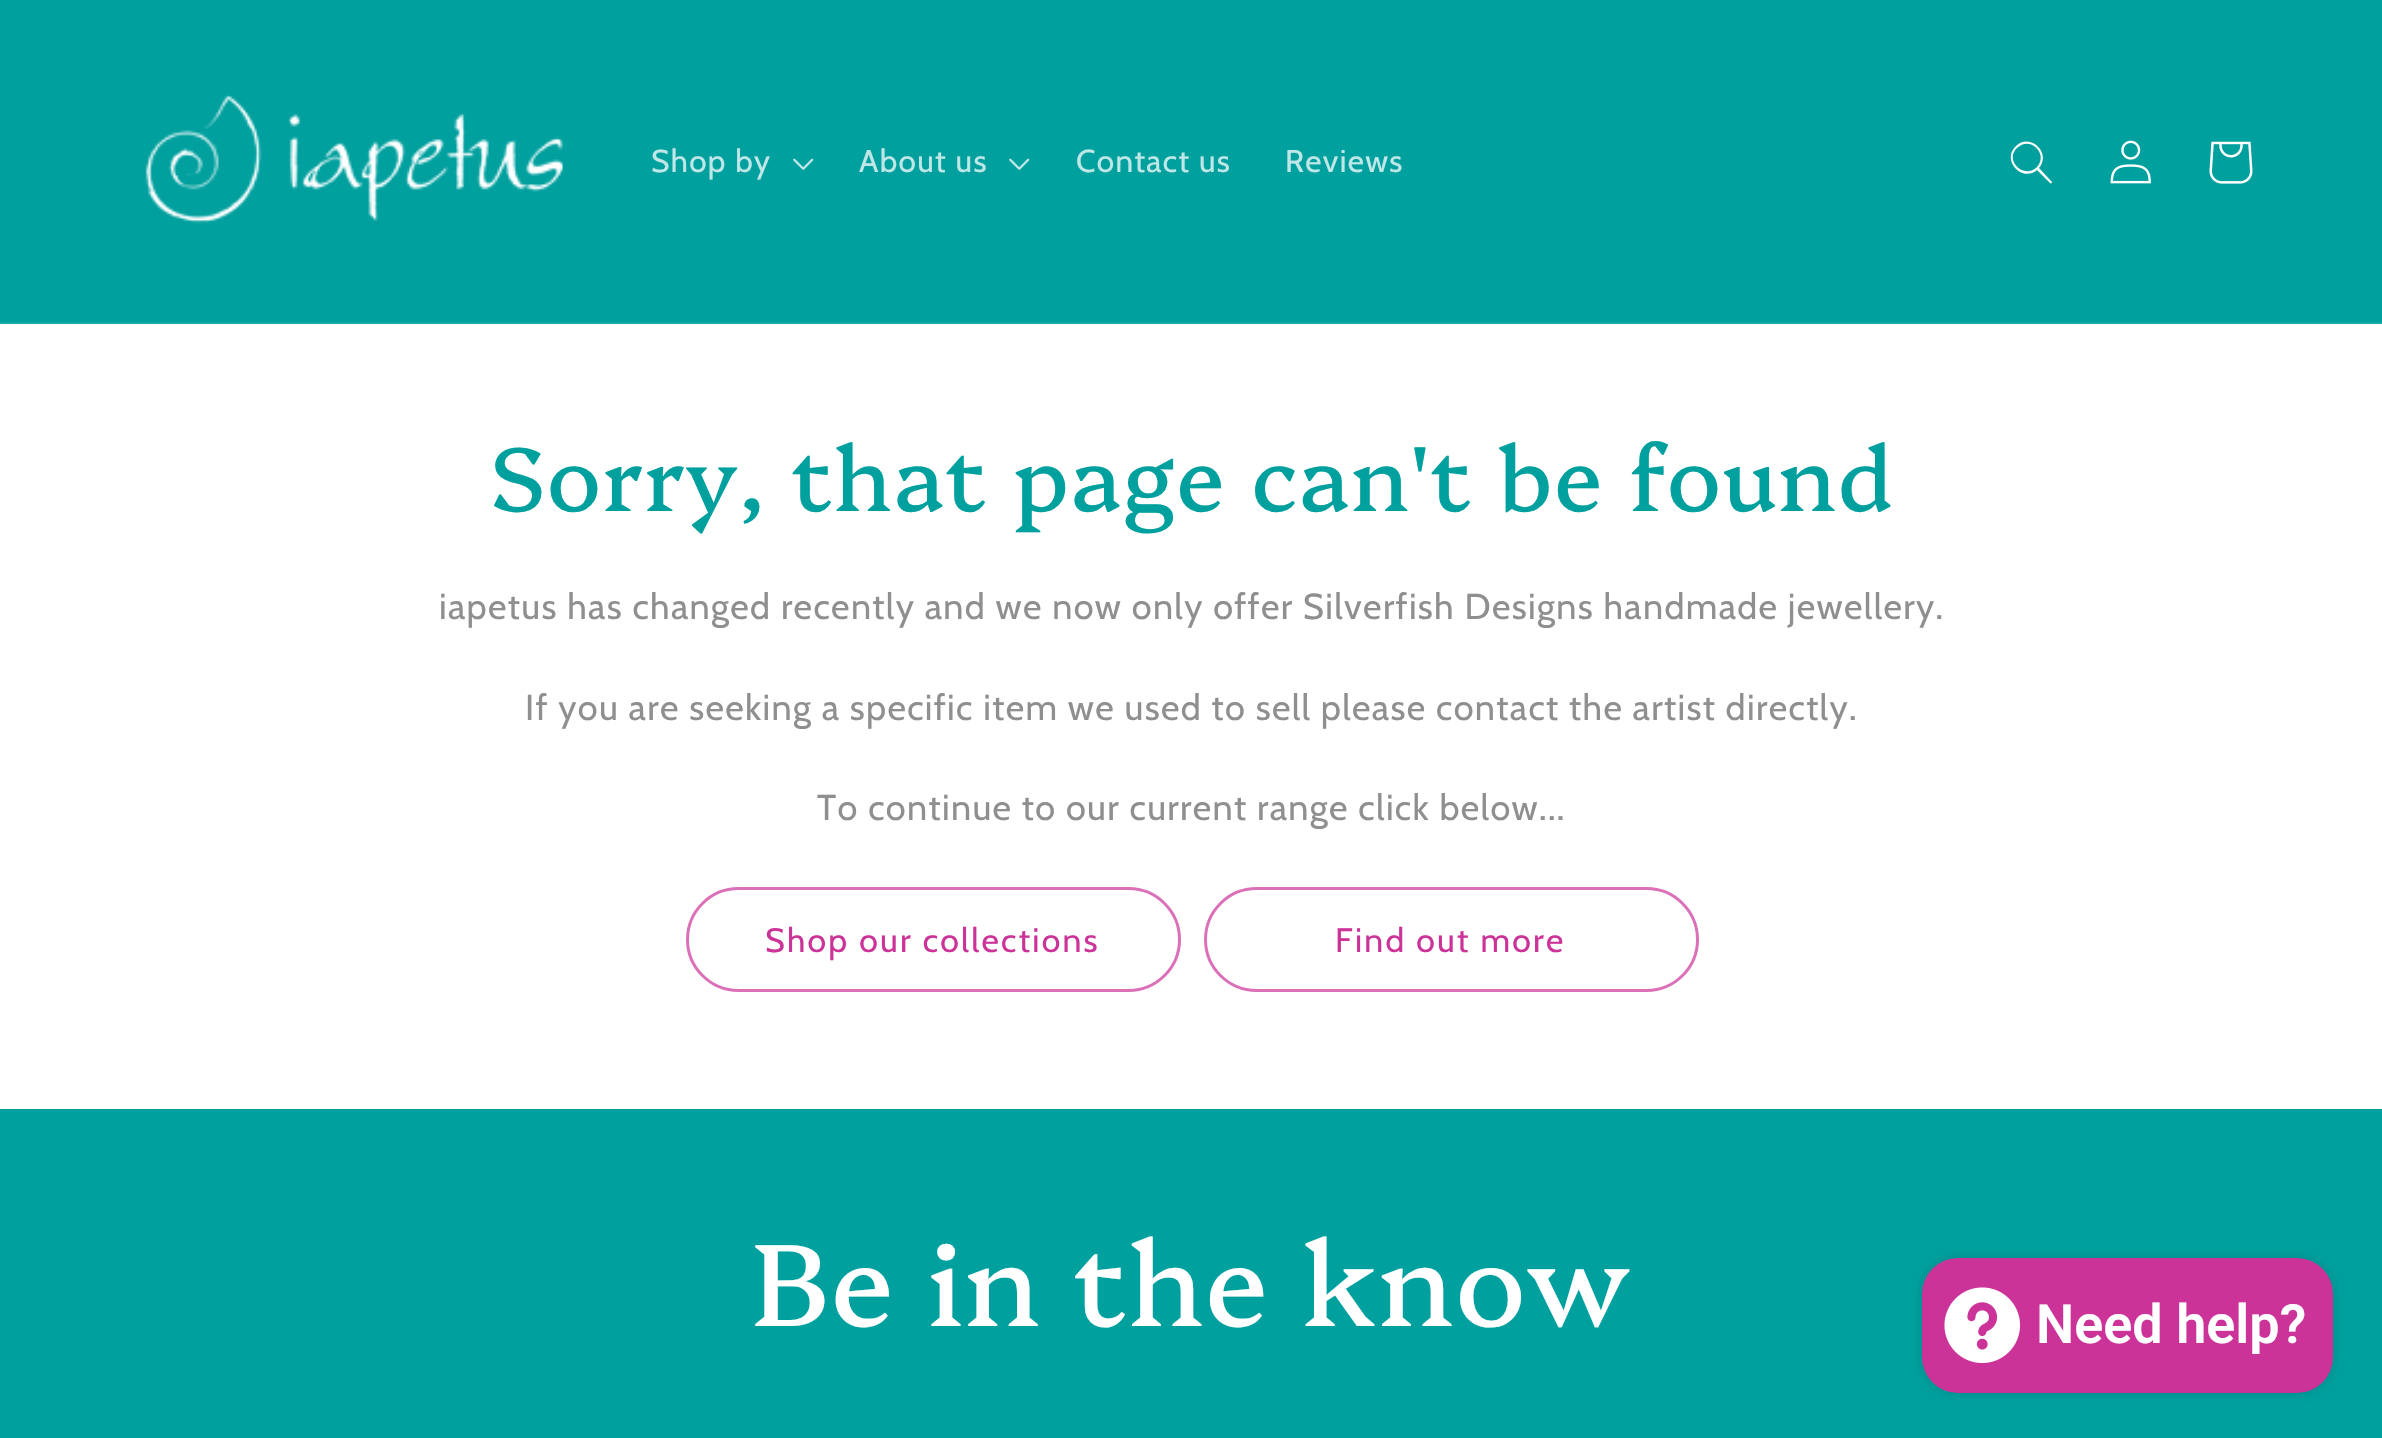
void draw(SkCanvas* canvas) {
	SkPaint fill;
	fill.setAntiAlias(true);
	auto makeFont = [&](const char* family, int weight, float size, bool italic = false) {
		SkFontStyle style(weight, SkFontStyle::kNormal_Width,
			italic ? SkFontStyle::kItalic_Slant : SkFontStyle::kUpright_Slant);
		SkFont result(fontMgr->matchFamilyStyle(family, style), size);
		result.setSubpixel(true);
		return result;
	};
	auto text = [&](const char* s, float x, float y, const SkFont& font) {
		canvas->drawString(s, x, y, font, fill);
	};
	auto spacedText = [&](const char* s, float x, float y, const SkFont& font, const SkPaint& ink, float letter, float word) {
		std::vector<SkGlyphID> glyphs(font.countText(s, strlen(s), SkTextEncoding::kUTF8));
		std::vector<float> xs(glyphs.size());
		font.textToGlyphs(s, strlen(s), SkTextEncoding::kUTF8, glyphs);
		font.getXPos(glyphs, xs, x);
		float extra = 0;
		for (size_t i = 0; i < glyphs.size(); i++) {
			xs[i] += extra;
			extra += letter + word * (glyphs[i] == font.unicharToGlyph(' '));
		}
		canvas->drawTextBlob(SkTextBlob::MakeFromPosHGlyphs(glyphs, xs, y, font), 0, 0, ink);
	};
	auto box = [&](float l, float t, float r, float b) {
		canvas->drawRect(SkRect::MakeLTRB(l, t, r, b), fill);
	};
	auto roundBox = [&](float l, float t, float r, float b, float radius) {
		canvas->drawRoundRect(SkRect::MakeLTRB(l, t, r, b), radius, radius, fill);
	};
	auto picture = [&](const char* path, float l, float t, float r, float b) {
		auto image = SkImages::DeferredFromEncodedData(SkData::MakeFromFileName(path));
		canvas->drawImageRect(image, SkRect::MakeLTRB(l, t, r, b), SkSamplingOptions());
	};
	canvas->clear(0xFFFFFFFF);
	fill.setColor(0xFF00A09E);
	box(0, 0, 2382, 322);
	fill.setColor(0xFF14A8A6);
	box(0, 322, 2382, 324);
	picture("image0.png", 145, 94, 563, 224);
	picture("image1.png", 793, 158, 814, 170);
	picture("image1.png", 1009, 158, 1030, 170);
	fill.setColor(0xFFFFFFFF);
	canvas->drawPath(SkPathBuilder(SkPathFillType::kEvenOdd).moveTo(2037, 167).cubicTo(2024, 180, 2004, 160, 2017, 148).cubicTo(2030, 135, 2049, 154, 2037, 167).moveTo(2037, 170).cubicTo(2022, 183, 2001, 160, 2016, 146).cubicTo(2030, 132, 2052, 153, 2039, 168).lineTo(2052, 182).cubicTo(2052, 183, 2051, 184, 2050, 183).close().detach(), fill);
	picture("image2.png", 2110, 140, 2151, 184);
	picture("image3.png", 2209, 141, 2253, 184);
	fill.setStyle(SkPaint::kStroke_Style);
	fill.setStrokeWidth(3);
	fill.setColor(0xFFDB70B8);
	canvas->drawRoundRect(SkRect::MakeLTRB(687.5f, 888.5f, 1179.5f, 990.5f), 51, 51, fill);
	canvas->drawRoundRect(SkRect::MakeLTRB(1205.5f, 888.5f, 1697.5f, 990.5f), 51, 51, fill);
	fill.setStyle(SkPaint::kFill_Style);
	fill.setColor(0xFF00A09E);
	box(0, 1109, 2382, 1438);
	fill.setColor(0x26000000);
	fill.setMaskFilter(SkMaskFilter::MakeBlur(kNormal_SkBlurStyle, 5.5f));
	canvas->drawRoundRect(SkRect::MakeLTRB(1922, 1258, 2333, 1393), 36, 36, fill);
	fill.setMaskFilter(nullptr);
	fill.setColor(0xFFCC3399);
	roundBox(1922, 1258, 2333, 1393, 36);
	picture("image4.png", 1944, 1287, 2021, 1364);
	auto font1 = makeFont("Cabin", 400, 31.5f);
	fill.setColor(0xFFBFE7E7);
	spacedText("Shop by", 651, 172, font1, fill, 1.35f, 0);
	spacedText("About us", 859, 172, font1, fill, 1.35f, 0);
	spacedText("Contact us", 1076, 172, font1, fill, 1.35f, 0);
	spacedText("Reviews", 1285, 172, font1, fill, 1.35f, 0);
	auto font2 = makeFont("Platypi", 400, 90);
	fill.setColor(0xFF00A09E);
	spacedText("Sorry, that page can't be found", 490, 511, font2, fill, 1.35f, 0);
	auto font3 = makeFont("Cabin", 400, 36);
	fill.setColor(0xFF8F8F8F);
	spacedText("iapetus has changed recently and we now only offer Silverfish Designs handmade jewellery.", 439, 619, font3, fill, 1.35f, 0);
	spacedText("If you are seeking a specific item we used to sell please contact the artist directly.", 525, 720, font3, fill, 1.35f, 0);
	spacedText("To continue to our current range click below...", 817, 820, font3, fill, 1.35f, 0);
	auto font4 = makeFont("Cabin", 400, 33.75f);
	fill.setColor(0xFFCC3399);
	spacedText("Shop our collections", 765, 952, font4, fill, 2.25f, 0);
	spacedText("Find out more", 1335, 952, font4, fill, 2.25f, 0);
	auto font5 = makeFont("Platypi", 400, 117);
	fill.setColor(0xFFFFFFFF);
	spacedText("Be in the know", 752, 1326, font5, fill, 1.35f, 0);
	auto font6 = makeFont("Roboto", 600, 54);
	text("Need help?", 2036, 1343, font6);
}
